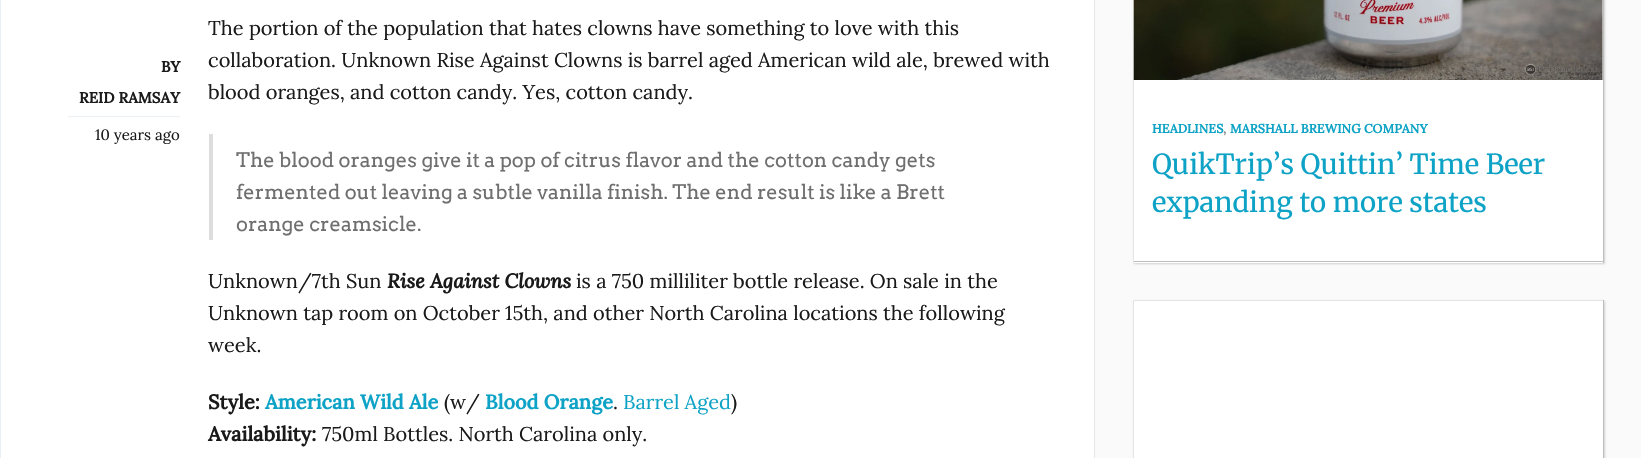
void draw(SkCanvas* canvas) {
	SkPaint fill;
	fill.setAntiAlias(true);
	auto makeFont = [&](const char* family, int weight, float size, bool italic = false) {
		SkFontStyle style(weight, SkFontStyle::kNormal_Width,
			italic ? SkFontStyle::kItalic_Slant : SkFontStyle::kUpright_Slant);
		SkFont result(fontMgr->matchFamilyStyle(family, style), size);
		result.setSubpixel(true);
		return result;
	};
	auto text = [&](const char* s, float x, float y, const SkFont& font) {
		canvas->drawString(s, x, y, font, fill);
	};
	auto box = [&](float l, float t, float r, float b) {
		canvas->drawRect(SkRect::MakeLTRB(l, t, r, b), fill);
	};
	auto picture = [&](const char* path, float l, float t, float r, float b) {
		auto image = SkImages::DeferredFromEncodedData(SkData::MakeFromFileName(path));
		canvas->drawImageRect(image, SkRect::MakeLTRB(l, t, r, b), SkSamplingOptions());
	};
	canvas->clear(0xFFFFFFFF);
	fill.setStyle(SkPaint::kStroke_Style);
	fill.setStrokeWidth(1);
	fill.setColor(0xFFEAF0F4);
	canvas->drawRect(SkRect::MakeLTRB(0.5f, -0.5f, 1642.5f, 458.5f), fill);
	fill.setStyle(SkPaint::kFill_Style);
	fill.setColor(0xFFE7E7E7);
	box(1094, 0, 1095, 458);
	fill.setColor(0xFFEAF0F4);
	box(68, 116, 180, 117);
	fill.setColor(0xFFDDDDDD);
	box(209, 134, 213, 240);
	fill.setColor(0xFFFAFAFA);
	box(1095, 0, 1641, 458);
	fill.setColor(0xFFD0D0D0);
	fill.setMaskFilter(SkMaskFilter::MakeBlur(kNormal_SkBlurStyle, 1));
	canvas->drawRect(SkRect::MakeLTRB(1134, -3, 1605, 264), fill);
	fill.setMaskFilter(nullptr);
	fill.setColor(0xFFFFFFFF);
	box(1134, 0, 1603, 263);
	fill.setColor(0xFFBEBEBD);
	box(1603, 0, 1604, 263);
	box(1133, 261, 1604, 262);
	fill.setColor(0xFFE4E4E4);
	box(1133, 0, 1134, 263);
	picture("image0.png", 1133, 0, 1603, 80);
	fill.setColor(0xFFD0D0D0);
	fill.setMaskFilter(SkMaskFilter::MakeBlur(kNormal_SkBlurStyle, 1));
	canvas->drawRect(SkRect::MakeLTRB(1134, 301, 1605, 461), fill);
	fill.setMaskFilter(nullptr);
	fill.setColor(0xFFFFFFFF);
	box(1134, 301, 1603, 458);
	fill.setColor(0xFFE4E4E4);
	box(1133, 300, 1604, 301);
	fill.setColor(0xFFBEBEBD);
	box(1603, 300, 1604, 458);
	fill.setColor(0xFFE4E4E4);
	box(1133, 300, 1134, 458);
	auto font1 = makeFont("Lora", 700, 15);
	fill.setColor(0xFF1A1A1A);
	text("BY", 161, 72, font1);
	text("REID RAMSAY", 79, 103, font1);
	auto font2 = makeFont("Lora", 400, 15);
	text("10 years ago", 95, 140, font2);
	auto font3 = makeFont("Lora", 400, 20);
	text("The portion of the population that hates clowns have something to love with this", 208, 35, font3);
	text("collaboration. Unknown Rise Against Clowns is barrel aged American wild ale, brewed with", 208, 67, font3);
	text("blood oranges, and cotton candy. Yes, cotton candy.", 208, 99, font3);
	auto font4 = makeFont("Arvo", 400, 20);
	fill.setColor(0xFF6F6F6F);
	text("The blood oranges give it a pop of citrus flavor and the cotton candy gets", 236, 167, font4);
	text("fermented out leaving a subtle vanilla finish. The end result is like a Brett", 236, 199, font4);
	text("orange creamsicle.", 236, 231, font4);
	fill.setColor(0xFF1A1A1A);
	text("Unknown/7th Sun", 208, 288, font3);
	auto font5 = makeFont("Lora", 700, 20, true);
	text("Rise Against Clowns", 387, 288, font5);
	text("is a 750 milliliter bottle release. On sale in the", 576, 288, font3);
	text("Unknown tap room on October 15th, and other North Carolina locations the following", 208, 320, font3);
	text("week.", 208, 352, font3);
	auto font6 = makeFont("Lora", 700, 20);
	text("Style:", 208, 409, font6);
	fill.setColor(0xFF0EA3C6);
	text("American Wild Ale", 265, 409, font6);
	fill.setColor(0xFF1A1A1A);
	text("(w/", 444, 409, font3);
	fill.setColor(0xFF0EA3C6);
	text("Blood Orange", 485, 409, font6);
	fill.setColor(0xFF1A1A1A);
	text(".", 613, 409, font3);
	fill.setColor(0xFF0EA3C6);
	text("Barrel Aged", 623, 409, font3);
	fill.setColor(0xFF1A1A1A);
	text(")", 731, 409, font3);
	text("Availability:", 208, 441, font6);
	text("750ml Bottles. North Carolina only.", 322, 441, font3);
	auto font7 = makeFont("Lora", 700, 12.5f);
	fill.setColor(0xFF0EA3C6);
	text("HEADLINES", 1152, 133, font7);
	fill.setColor(0xFF8A8C8E);
	text(",", 1223, 133, font7);
	fill.setColor(0xFF0EA3C6);
	text("MARSHALL BREWING COMPANY", 1230, 133, font7);
	auto font8 = makeFont("Merriweather", 400, 27.5f);
	text("QuikTrip’s Quittin’ Time Beer", 1152, 174, font8);
	text("expanding to more states", 1152, 212, font8);
}
